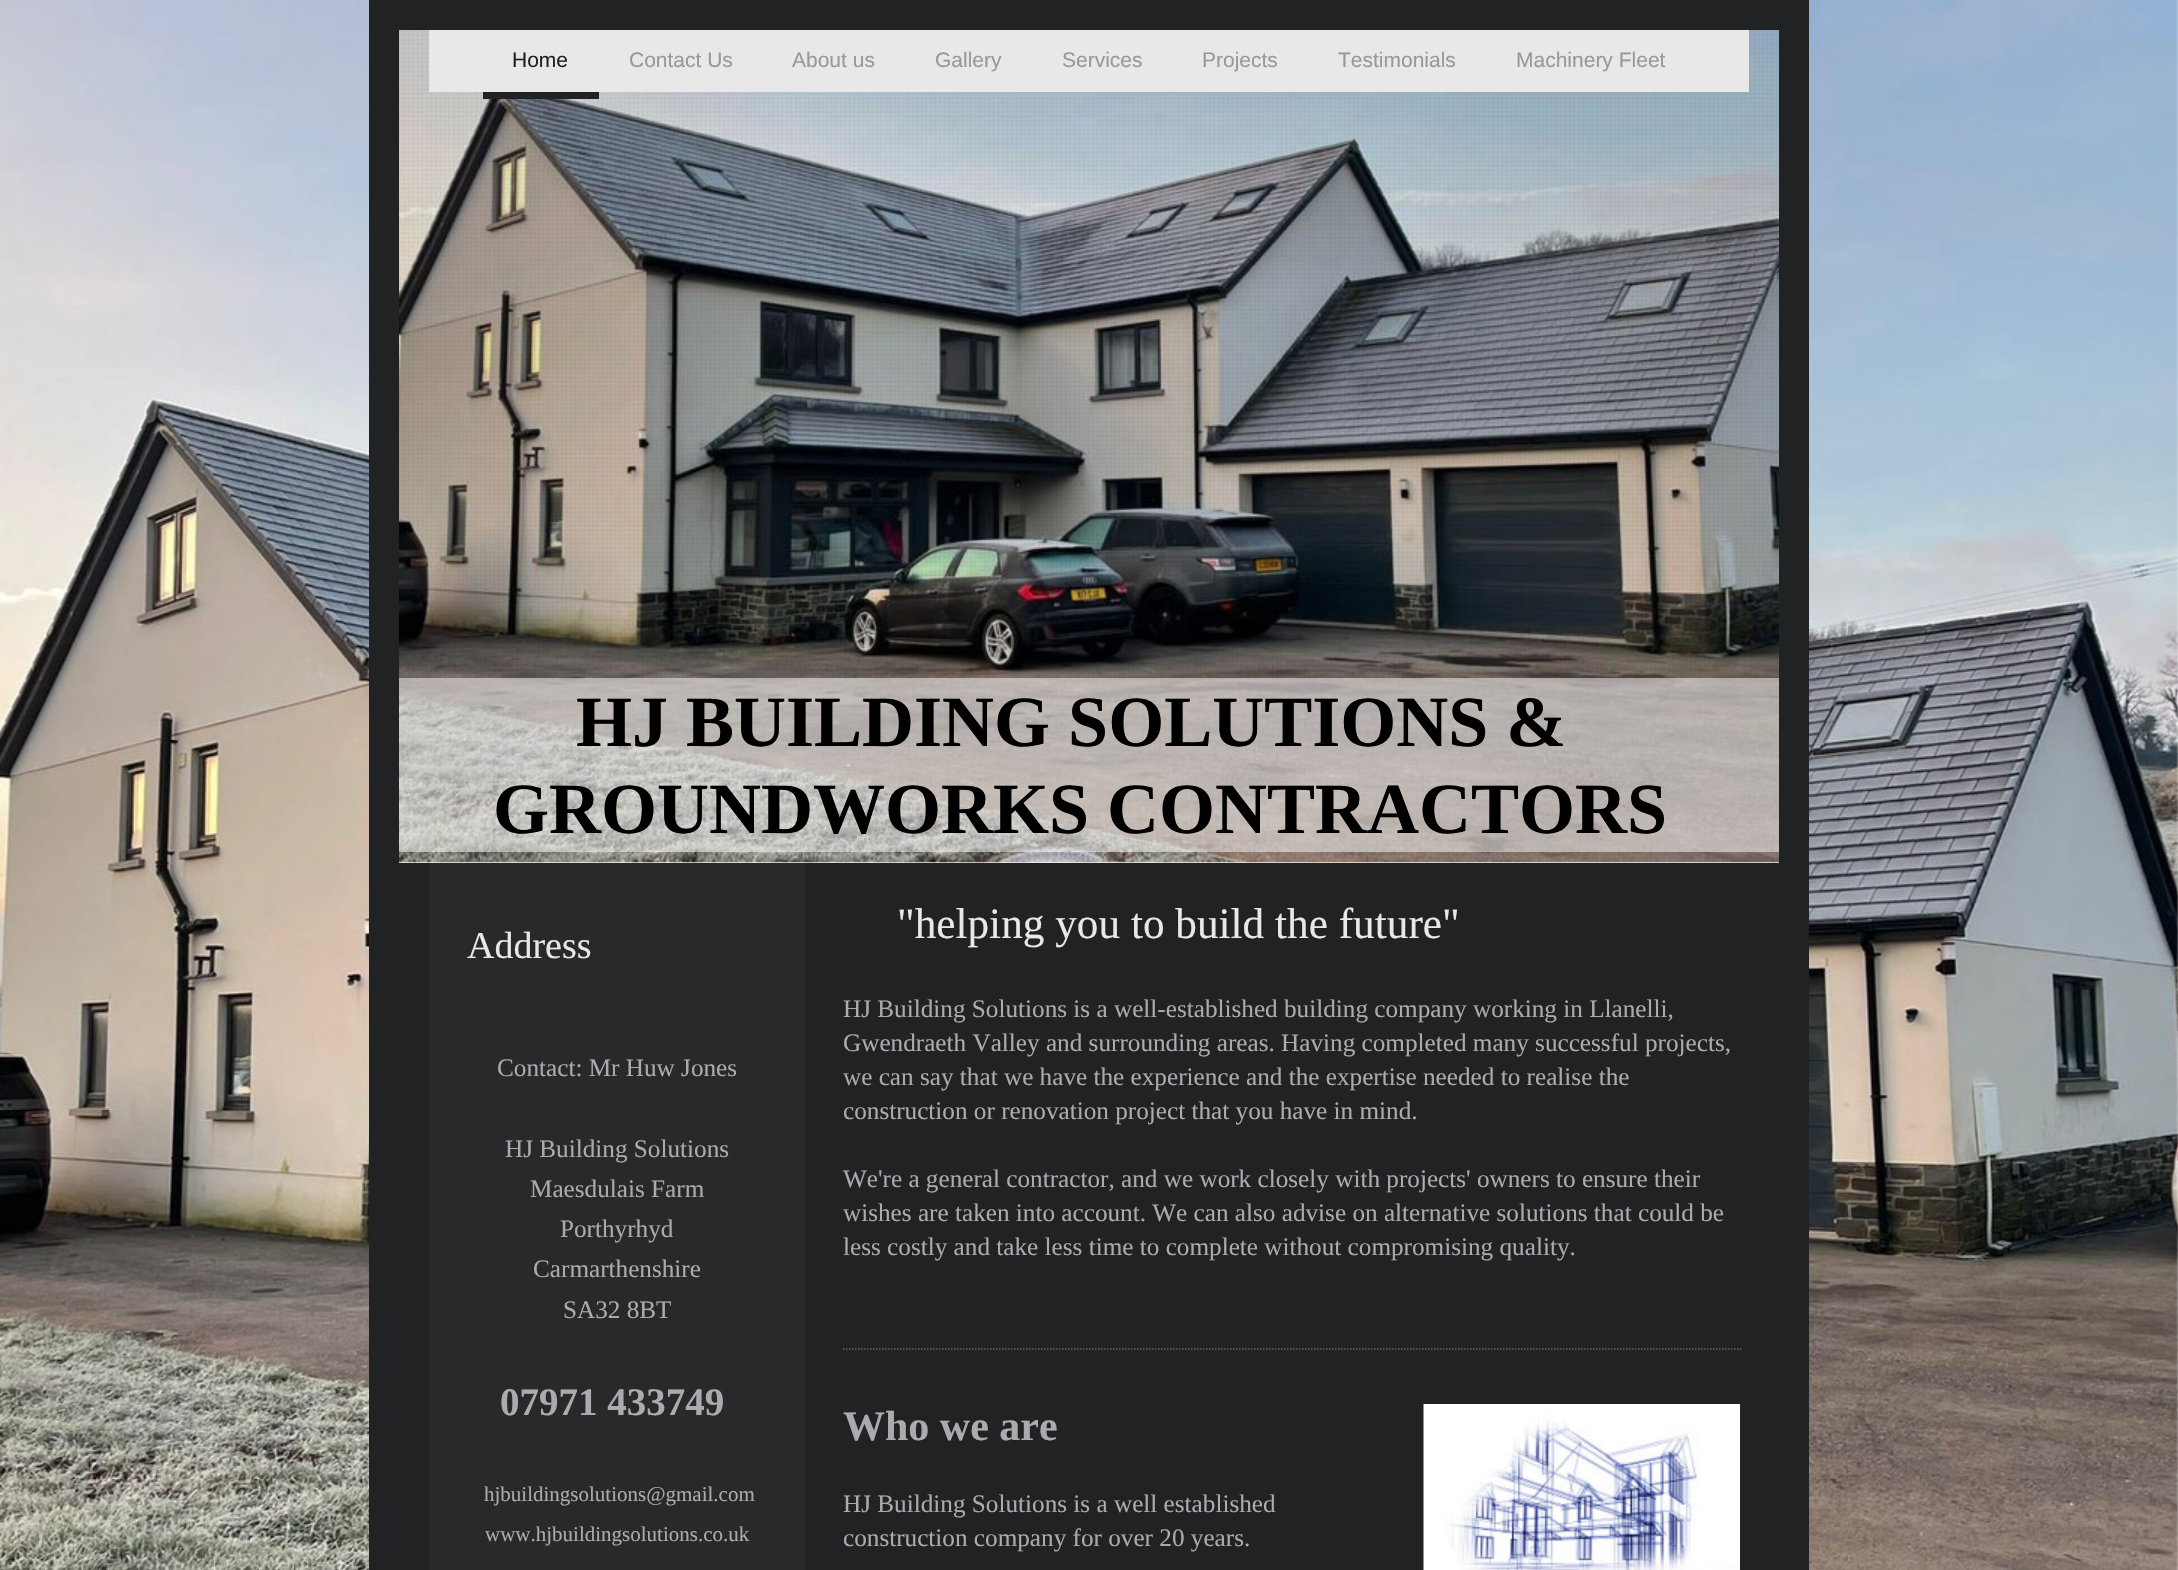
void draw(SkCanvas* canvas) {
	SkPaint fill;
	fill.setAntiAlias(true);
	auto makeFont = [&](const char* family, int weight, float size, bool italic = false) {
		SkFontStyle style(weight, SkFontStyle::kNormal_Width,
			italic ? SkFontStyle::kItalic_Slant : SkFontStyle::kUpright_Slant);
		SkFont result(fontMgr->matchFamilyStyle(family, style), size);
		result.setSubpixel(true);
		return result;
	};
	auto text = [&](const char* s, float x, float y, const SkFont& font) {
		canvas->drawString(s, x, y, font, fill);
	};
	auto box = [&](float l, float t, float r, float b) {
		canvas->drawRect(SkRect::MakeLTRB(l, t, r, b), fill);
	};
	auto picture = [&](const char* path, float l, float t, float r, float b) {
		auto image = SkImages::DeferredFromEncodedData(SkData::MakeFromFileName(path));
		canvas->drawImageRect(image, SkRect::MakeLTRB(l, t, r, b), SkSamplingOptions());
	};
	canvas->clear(0xFFFFFFFF);
	picture("image0.png", 0, 0, 2178, 1570);
	fill.setColor(0xFF212224);
	box(369, 0, 1809, 1570);
	fill.setColor(0xFFEEEEEE);
	box(399, 862, 1779, 863);
	picture("image1.png", 399, 30, 1779, 863);
	picture("image2.png", 399, 30, 1779, 862);
	fill.setColor(0xFFE8E8E8);
	box(429, 30, 1749, 92);
	fill.setColor(0xFF212224);
	box(483, 92, 599, 99);
	fill.setColor(0x80FFFFFF);
	box(399, 678, 1779, 852);
	fill.setColor(0xFF28292B);
	box(429, 863, 806, 1570);
	fill.setStyle(SkPaint::kStroke_Style);
	fill.setStrokeWidth(1.5f);
	fill.setColor(0xFF63666C);
	fill.setPathEffect(SkDashPathEffect::Make({{1.5f, 1.5f}}, 0));
	canvas->drawPath(SkPathBuilder().moveTo(843, 1349).lineTo(1741.5f, 1349).detach(), fill);
	fill.setPathEffect(nullptr);
	picture("image3.png", 1423, 1404, 1740, 1570);
	auto font1 = makeFont("Liberation Sans", 400, 21);
	fill.setStyle(SkPaint::kFill_Style);
	fill.setColor(0xFF212224);
	text("Home", 512, 67, font1);
	fill.setColor(0xFF989898);
	text("Contact Us", 629, 67, font1);
	text("About us", 792, 67, font1);
	text("Gallery", 935, 67, font1);
	text("Services", 1062, 67, font1);
	text("Projects", 1202, 67, font1);
	text("Testimonials", 1338, 67, font1);
	text("Machinery Fleet", 1516, 67, font1);
	auto font2 = makeFont("Liberation Serif", 700, 72);
	fill.setColor(0xFF000000);
	text("HJ BUILDING SOLUTIONS &", 576, 746, font2);
	text("GROUNDWORKS CONTRACTORS", 493, 833, font2);
	auto font3 = makeFont("Liberation Serif", 400, 38);
	fill.setColor(0xFFE8E8E8);
	text("Address", 467, 958, font3);
	auto font4 = makeFont("Liberation Serif", 400, 25.2f);
	fill.setColor(0xFFA9ABAF);
	text("Contact: Mr Huw Jones", 497, 1076, font4);
	text("HJ Building Solutions", 505, 1157, font4);
	text("Maesdulais Farm", 530, 1197, font4);
	text("Porthyrhyd", 560, 1237, font4);
	text("Carmarthenshire", 533, 1277, font4);
	text("SA32 8BT", 563, 1318, font4);
	auto font5 = makeFont("Liberation Serif", 700, 39);
	text("07971 433749", 500, 1415, font5);
	auto font6 = makeFont("Liberation Serif", 400, 21);
	text("hjbuildingsolutions@gmail.com", 484, 1501, font6);
	text("www.hjbuildingsolutions.co.uk", 485, 1541, font6);
	auto font7 = makeFont("Liberation Serif", 400, 43.25f);
	fill.setColor(0xFFE8E8E8);
	text("\"helping you to build the future\"", 897, 938, font7);
	fill.setColor(0xFFA9ABAF);
	text("HJ Building Solutions is a well-established building company working in Llanelli,", 843, 1017, font4);
	text("Gwendraeth Valley and surrounding areas. Having completed many successful projects,", 843, 1051, font4);
	text("we can say that we have the experience and the expertise needed to realise the", 843, 1085, font4);
	text("construction or renovation project that you have in mind.", 843, 1119, font4);
	text("We're a general contractor, and we work closely with projects' owners to ensure their", 843, 1187, font4);
	text("wishes are taken into account. We can also advise on alternative solutions that could be", 843, 1221, font4);
	text("less costly and take less time to complete without compromising quality.", 843, 1255, font4);
	auto font8 = makeFont("Liberation Serif", 700, 42);
	text("Who we are", 843, 1440, font8);
	text("HJ Building Solutions is a well established", 843, 1512, font4);
	text("construction company for over 20 years.", 843, 1546, font4);
}
